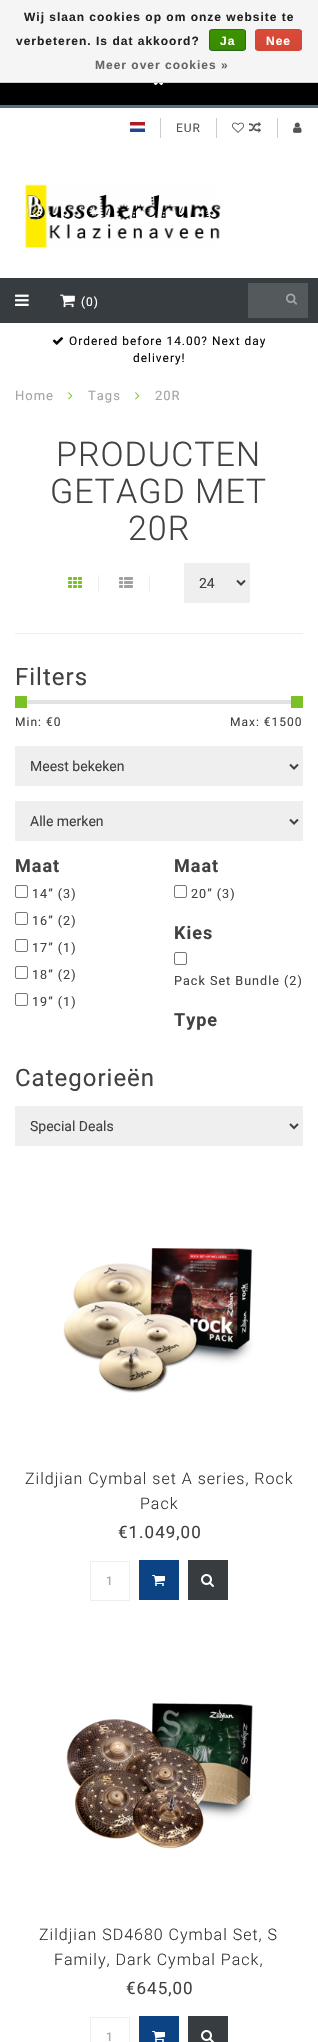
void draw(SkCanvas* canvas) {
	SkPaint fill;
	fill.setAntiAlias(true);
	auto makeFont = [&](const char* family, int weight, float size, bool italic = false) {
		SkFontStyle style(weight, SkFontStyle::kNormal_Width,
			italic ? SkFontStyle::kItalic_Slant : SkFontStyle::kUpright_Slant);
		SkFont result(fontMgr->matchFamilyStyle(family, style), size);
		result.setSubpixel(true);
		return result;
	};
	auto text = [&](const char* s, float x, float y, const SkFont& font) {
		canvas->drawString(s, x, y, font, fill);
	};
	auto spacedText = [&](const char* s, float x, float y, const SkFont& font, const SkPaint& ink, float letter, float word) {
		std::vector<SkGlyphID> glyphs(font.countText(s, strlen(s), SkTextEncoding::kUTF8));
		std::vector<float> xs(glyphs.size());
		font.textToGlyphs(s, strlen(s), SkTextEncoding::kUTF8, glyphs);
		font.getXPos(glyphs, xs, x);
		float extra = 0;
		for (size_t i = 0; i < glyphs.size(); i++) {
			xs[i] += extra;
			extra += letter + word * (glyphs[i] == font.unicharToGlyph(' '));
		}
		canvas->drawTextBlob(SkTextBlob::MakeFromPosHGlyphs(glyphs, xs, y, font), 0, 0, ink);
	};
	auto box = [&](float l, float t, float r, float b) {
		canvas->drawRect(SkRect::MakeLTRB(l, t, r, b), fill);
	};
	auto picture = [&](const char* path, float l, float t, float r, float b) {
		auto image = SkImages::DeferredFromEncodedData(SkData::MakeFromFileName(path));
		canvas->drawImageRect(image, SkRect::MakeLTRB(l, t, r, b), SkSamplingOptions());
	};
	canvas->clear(0xFFFFFFFF);
	fill.setColor(0xFFF5F5F5);
	box(0, 0, 318, 82);
	fill.setColor(0xFFCCCCCC);
	box(0, 82, 318, 83);
	canvas->save();
	canvas->clipPath(SkPathBuilder().moveTo(212, 29).lineTo(243, 29).cubicTo(244.5f, 29, 246, 30.5f, 246, 32).lineTo(246, 48).cubicTo(246, 49.5f, 244.5f, 51, 243, 51).lineTo(212, 51).cubicTo(210.5f, 51, 209, 49.5f, 209, 48).lineTo(209, 32).cubicTo(209, 30.5f, 210.5f, 29, 212, 29).close().detach(), true);
	{
		const SkColor colors[] = {0xFF3C9300, 0xFF398A00};
		const float stops[] = {0, 1};
		const SkPoint ends[] = {{228, 30}, {228, 50}};
		fill.setShader(SkGradientShader::MakeLinear(ends, colors, stops, 2, SkTileMode::kClamp));
		fill.setAlpha(255);
	}
	box(209, 30, 246, 50);
	canvas->restore();
	fill.setStyle(SkPaint::kStroke_Style);
	fill.setStrokeWidth(1);
	fill.setShader(nullptr);
	fill.setColor(0xFF29691D);
	canvas->drawRoundRect(SkRect::MakeLTRB(209.5f, 29.5f, 245.5f, 50.5f), 2.5f, 2.5f, fill);
	canvas->save();
	canvas->clipPath(SkPathBuilder().moveTo(258, 29).lineTo(299, 29).cubicTo(300.5f, 29, 302, 30.5f, 302, 32).lineTo(302, 48).cubicTo(302, 49.5f, 300.5f, 51, 299, 51).lineTo(258, 51).cubicTo(256.5f, 51, 255, 49.5f, 255, 48).lineTo(255, 32).cubicTo(255, 30.5f, 256.5f, 29, 258, 29).close().detach(), true);
	fill.setStyle(SkPaint::kFill_Style);
	{
		const SkColor colors[] = {0xFFDC4A38, 0xFFD14836};
		const float stops[] = {0, 1};
		const SkPoint ends[] = {{279, 30}, {279, 50}};
		fill.setShader(SkGradientShader::MakeLinear(ends, colors, stops, 2, SkTileMode::kClamp));
		fill.setAlpha(255);
	}
	box(255, 30, 302, 50);
	canvas->restore();
	fill.setStyle(SkPaint::kStroke_Style);
	fill.setShader(nullptr);
	fill.setColor(0xFFD14836);
	canvas->drawRoundRect(SkRect::MakeLTRB(255.5f, 29.5f, 301.5f, 50.5f), 2.5f, 2.5f, fill);
	fill.setStyle(SkPaint::kFill_Style);
	fill.setColor(0xFF000000);
	box(0, 83, 318, 105);
	picture("image0.png", 153, 83, 164, 86);
	fill.setColor(0xFF517179);
	box(0, 105, 318, 108);
	fill.setColor(0xFFCCCCCC);
	box(160, 118, 161, 138);
	picture("image1.png", 130, 122, 145, 132);
	box(216, 118, 217, 138);
	box(277, 118, 278, 138);
	picture("image2.png", 232, 122, 244, 133);
	picture("image3.png", 249, 122, 261, 133);
	picture("image4.png", 293, 122, 302, 133);
	picture("image5.png", 25, 184, 221, 249);
	fill.setColor(0xFF363C3F);
	box(0, 278, 318, 323);
	picture("image6.png", 15, 294, 29, 306);
	picture("image7.png", 60, 294, 75, 308);
	fill.setColor(0xFF54595B);
	box(248, 283, 308, 318);
	picture("image8.png", 286, 293, 297, 305);
	picture("image9.png", 52, 337, 64, 345);
	picture("image10.png", 68, 392, 73, 400);
	picture("image10.png", 135, 392, 140, 400);
	fill.setColor(0xFFEEEEEE);
	box(98, 575, 99, 591);
	picture("image11.png", 68, 577, 82, 588);
	box(149, 575, 150, 591);
	picture("image12.png", 119, 577, 133, 588);
	fill.setColor(0xFFEFEFEF);
	box(184, 563, 250, 603);
	fill.setStyle(SkPaint::kStroke_Style);
	fill.setStrokeWidth(2);
	fill.setColor(0xFF414141);
	canvas->drawPath(SkPathBuilder().moveTo(237, 580.5f).lineTo(241, 584.5f).lineTo(245, 580.5f).detach(), fill);
	fill.setStyle(SkPaint::kFill_Style);
	fill.setColor(0xFFEEEEEE);
	box(15, 633, 303, 634);
	fill.setColor(0xFFE2E2E2);
	box(25, 700, 291, 704);
	fill.setColor(0xFF7CC028);
	box(15, 696, 27, 708);
	box(291, 696, 303, 708);
	fill.setColor(0xFFEFEFEF);
	box(15, 746, 303, 786);
	fill.setStyle(SkPaint::kStroke_Style);
	fill.setColor(0xFF414141);
	canvas->drawPath(SkPathBuilder().moveTo(290, 764.5f).lineTo(294, 768.5f).lineTo(298, 764.5f).detach(), fill);
	fill.setStyle(SkPaint::kFill_Style);
	fill.setColor(0xFFEFEFEF);
	box(15, 801, 303, 841);
	fill.setStyle(SkPaint::kStroke_Style);
	fill.setColor(0xFF414141);
	canvas->drawPath(SkPathBuilder().moveTo(290, 819.5f).lineTo(294, 823.5f).lineTo(298, 819.5f).detach(), fill);
	fill.setStrokeWidth(1);
	fill.setColor(0xFF767676);
	canvas->drawRoundRect(SkRect::MakeLTRB(15.5f, 885.5f, 27.5f, 897.5f), 1.5f, 1.5f, fill);
	canvas->drawRoundRect(SkRect::MakeLTRB(15.5f, 912.5f, 27.5f, 924.5f), 1.5f, 1.5f, fill);
	canvas->drawRoundRect(SkRect::MakeLTRB(15.5f, 939.5f, 27.5f, 951.5f), 1.5f, 1.5f, fill);
	canvas->drawRoundRect(SkRect::MakeLTRB(15.5f, 966.5f, 27.5f, 978.5f), 1.5f, 1.5f, fill);
	canvas->drawRoundRect(SkRect::MakeLTRB(15.5f, 993.5f, 27.5f, 1005.5f), 1.5f, 1.5f, fill);
	canvas->drawRoundRect(SkRect::MakeLTRB(174.5f, 885.5f, 186.5f, 897.5f), 1.5f, 1.5f, fill);
	canvas->drawRoundRect(SkRect::MakeLTRB(174.5f, 952.5f, 186.5f, 964.5f), 1.5f, 1.5f, fill);
	fill.setStyle(SkPaint::kFill_Style);
	fill.setColor(0xFFEFEFEF);
	box(15, 1106, 303, 1146);
	fill.setStyle(SkPaint::kStroke_Style);
	fill.setStrokeWidth(2);
	fill.setColor(0xFF414141);
	canvas->drawPath(SkPathBuilder().moveTo(290, 1124).lineTo(294, 1128).lineTo(298, 1124).detach(), fill);
	picture("image13.png", 63, 1248, 253, 1393);
	fill.setStrokeWidth(1);
	fill.setColor(0xFFEEEEEE);
	canvas->drawRect(SkRect::MakeLTRB(90.5f, 1561.5f, 129.5f, 1600.5f), fill);
	fill.setStyle(SkPaint::kFill_Style);
	fill.setColor(0xFF0C4385);
	box(139, 1560, 179, 1600);
	picture("image14.png", 152, 1575, 165, 1586);
	fill.setColor(0xFF363C3F);
	box(188, 1560, 228, 1600);
	picture("image15.png", 201, 1574, 214, 1587);
	picture("image16.png", 66, 1703, 253, 1849);
	fill.setStyle(SkPaint::kStroke_Style);
	fill.setColor(0xFFEEEEEE);
	canvas->drawRect(SkRect::MakeLTRB(90.5f, 2017.5f, 129.5f, 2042.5f), fill);
	fill.setStyle(SkPaint::kFill_Style);
	fill.setColor(0xFF0C4385);
	box(139, 2016, 179, 2042);
	picture("image14.png", 152, 2031, 165, 2042);
	fill.setColor(0xFF363C3F);
	box(188, 2016, 228, 2042);
	picture("image17.png", 201, 2030, 214, 2042);
	auto font1 = makeFont("Liberation Sans", 700, 12);
	fill.setColor(0xFF222222);
	spacedText("Wij slaan cookies op om onze website te", 24, 21, font1, fill, 1, 0);
	spacedText("verbeteren. Is dat akkoord?", 16, 45, font1, fill, 1, 0);
	fill.setColor(0xFFFFFFFF);
	spacedText("Ja", 220, 45, font1, fill, 1, 0);
	spacedText("Nee", 266, 45, font1, fill, 1, 0);
	fill.setColor(0xFF666666);
	spacedText("Meer over cookies »", 95, 69, font1, fill, 1, 0);
	auto font2 = makeFont("Roboto", 400, 12);
	fill.setColor(0xFF525557);
	spacedText("EUR", 176, 132, font2, fill, 1, 0);
	fill.setColor(0xFFFFFFFF);
	spacedText("(0)", 81, 306, font2, fill, 1, 0);
	auto font3 = makeFont("Roboto", 400, 11.9f);
	fill.setColor(0xFF070707);
	spacedText("Ordered before 14.00? Next day", 69, 345, font3, fill, 1, 0);
	spacedText("delivery!", 133, 362, font3, fill, 1, 0);
	auto font4 = makeFont("Roboto", 400, 13);
	fill.setColor(0xFFA5A5A5);
	spacedText("Home", 15, 400, font4, fill, 1, 0);
	spacedText("Tags", 88, 400, font4, fill, 1, 0);
	spacedText("20R", 155, 400, font4, fill, 1, 0);
	auto font5 = makeFont("Roboto", 300, 34);
	fill.setColor(0xFF414141);
	spacedText("PRODUCTEN", 56, 466, font5, fill, 1, 0);
	spacedText("GETAGD MET", 50, 503, font5, fill, 1, 0);
	spacedText("20R", 128, 540, font5, fill, 1, 0);
	auto font6 = makeFont("Roboto", 400, 14);
	text("24", 199, 588, font6);
	auto font7 = makeFont("Roboto", 400, 24);
	spacedText("Filters", 15, 685, font7, fill, 1, 0);
	spacedText("Min: €0", 15, 726, font2, fill, 1, 0);
	spacedText("Max: €1500", 230, 726, font2, fill, 1, 0);
	text("Meest bekeken", 30, 771, font6);
	text("Alle merken", 30, 826, font6);
	auto font8 = makeFont("Roboto", 700, 18);
	spacedText("Maat", 15, 872, font8, fill, 1, 0);
	auto font9 = makeFont("Roboto", 400, 12.6f);
	spacedText("14” (3)", 32, 898, font9, fill, 1, 0);
	spacedText("16” (2)", 32, 925, font9, fill, 1, 0);
	spacedText("17” (1)", 32, 952, font9, fill, 1, 0);
	spacedText("18” (2)", 32, 979, font9, fill, 1, 0);
	spacedText("19” (1)", 32, 1006, font9, fill, 1, 0);
	spacedText("Maat", 174, 872, font8, fill, 1, 0);
	spacedText("20” (3)", 191, 898, font9, fill, 1, 0);
	spacedText("Kies", 174, 939, font8, fill, 1, 0);
	spacedText("Pack Set Bundle (2)", 174, 985, font9, fill, 1, 0);
	spacedText("Type", 174, 1026, font8, fill, 1, 0);
	spacedText("Categorieën", 15, 1086, font7, fill, 1, 0);
	text("Special Deals", 30, 1131, font6);
	auto font10 = makeFont("Roboto", 300, 16);
	fill.setColor(0xFF333333);
	spacedText("Zildjian Cymbal set A series, Rock", 25, 1484, font10, fill, 1, 0);
	spacedText("Pack", 140, 1509, font10, fill, 1, 0);
	auto font11 = makeFont("Roboto", 400, 17);
	fill.setColor(0xFF414141);
	spacedText("€1.049,00", 118, 1538, font11, fill, 1, 0);
	fill.setColor(0xFF999999);
	text("1", 106, 1585, font2);
	fill.setColor(0xFF333333);
	spacedText("Zildjian SD4680 Cymbal Set, S", 39, 1940, font10, fill, 1, 0);
	spacedText("Family, Dark Cymbal Pack,", 54, 1965, font10, fill, 1, 0);
	fill.setColor(0xFF414141);
	spacedText("€645,00", 126, 1994, font11, fill, 1, 0);
	fill.setColor(0xFF999999);
	text("1", 106, 2041, font2);
}
